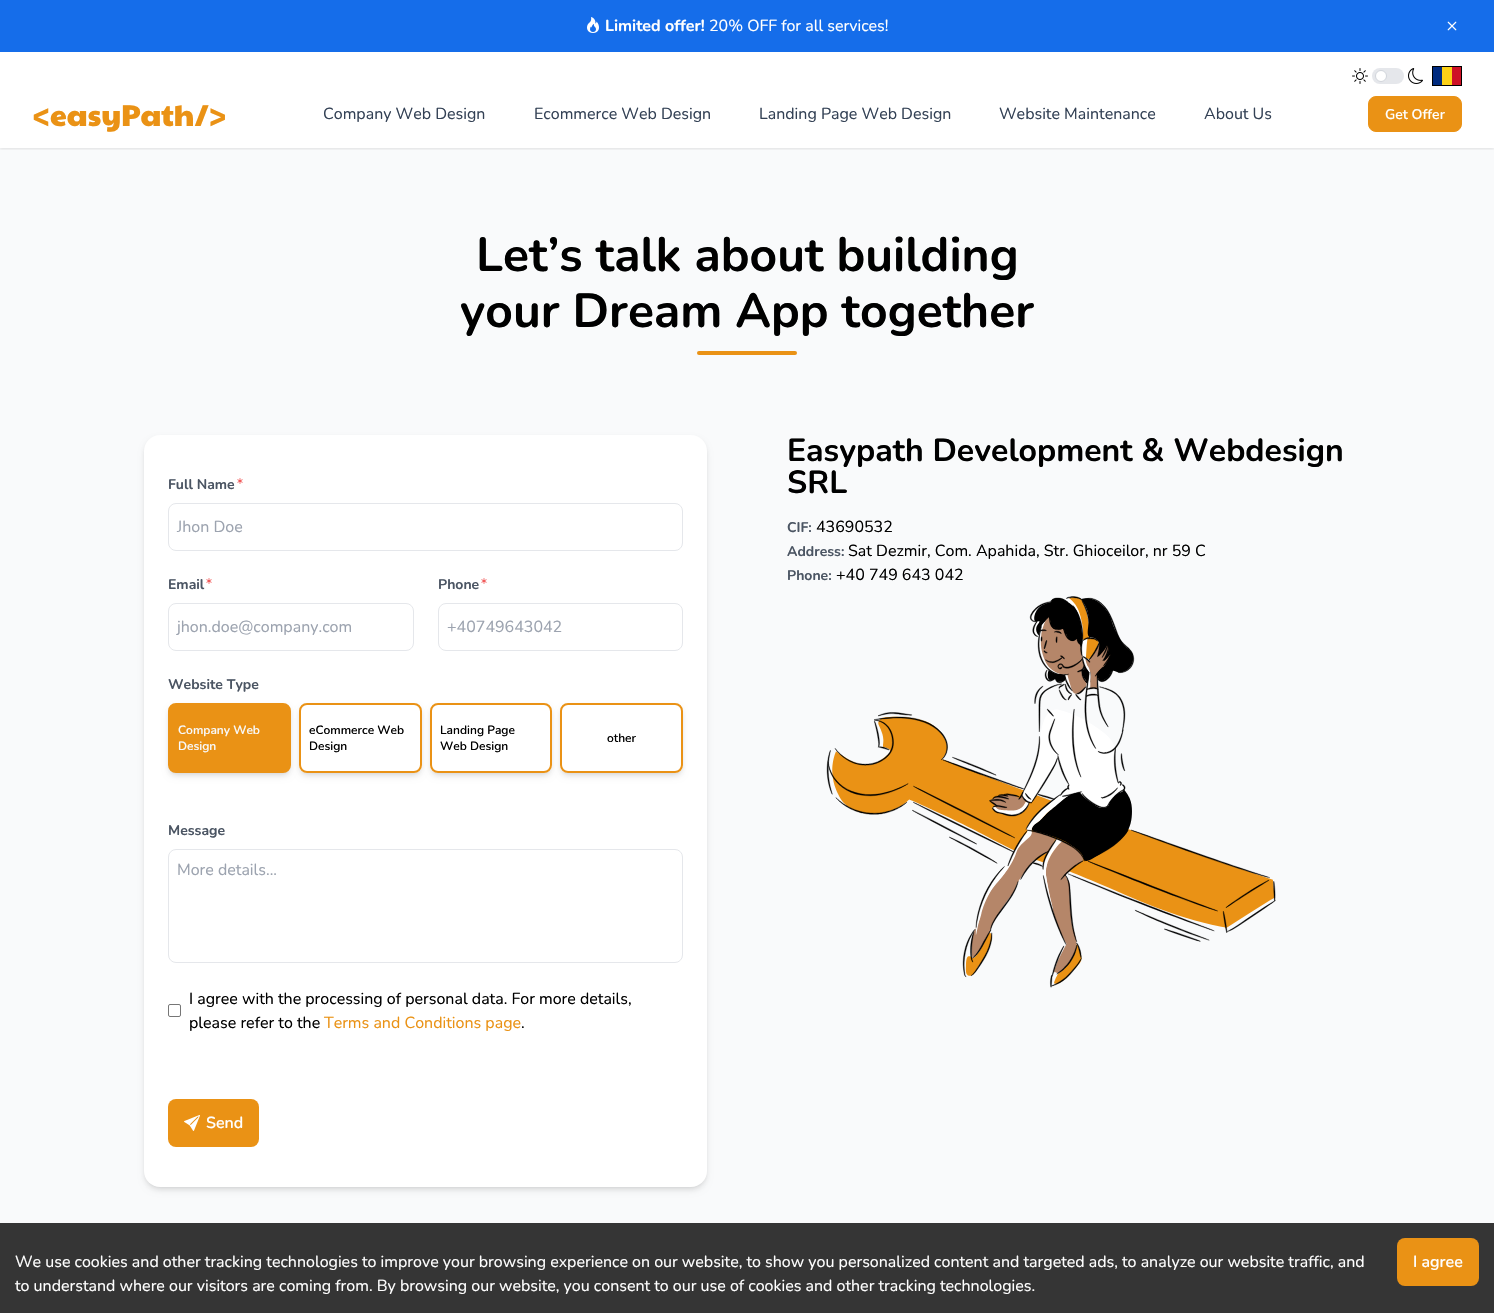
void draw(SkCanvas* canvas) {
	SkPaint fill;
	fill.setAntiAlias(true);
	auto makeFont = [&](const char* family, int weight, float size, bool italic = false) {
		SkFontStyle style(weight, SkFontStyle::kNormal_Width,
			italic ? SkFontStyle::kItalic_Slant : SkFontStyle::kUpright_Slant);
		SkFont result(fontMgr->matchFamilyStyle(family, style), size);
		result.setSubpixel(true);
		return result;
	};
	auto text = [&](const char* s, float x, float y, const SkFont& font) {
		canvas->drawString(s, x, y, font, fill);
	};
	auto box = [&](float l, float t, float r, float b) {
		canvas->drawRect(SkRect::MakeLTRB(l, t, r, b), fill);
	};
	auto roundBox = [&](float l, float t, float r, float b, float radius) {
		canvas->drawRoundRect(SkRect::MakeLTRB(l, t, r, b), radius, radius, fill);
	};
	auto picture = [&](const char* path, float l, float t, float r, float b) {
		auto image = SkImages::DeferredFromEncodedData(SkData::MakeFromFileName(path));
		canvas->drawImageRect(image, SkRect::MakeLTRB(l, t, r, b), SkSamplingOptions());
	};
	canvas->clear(0xFFFFFFFF);
	fill.setColor(0xFF156DEA);
	box(0, 0, 1494, 52);
	picture("image0.png", 587, 17, 599, 33);
	picture("image1.png", 1447, 21, 1457, 31);
	fill.setColor(0xFFF9FAFB);
	box(0, 148, 1494, 1223);
	canvas->save();
	canvas->clipRect(SkRect::MakeLTRB(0, 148, 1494, 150));
	fill.setColor(0x1A000000);
	fill.setMaskFilter(SkMaskFilter::MakeBlur(kNormal_SkBlurStyle, 1.5f));
	canvas->drawRect(SkRect::MakeLTRB(0, 53, 1494, 149), fill);
	fill.setMaskFilter(nullptr);
	canvas->restore();
	picture("image2.png", 1352, 68, 1368, 84);
	fill.setColor(0xFFE5E7EB);
	roundBox(1372, 68, 1404, 84, 8);
	fill.setColor(0xFFFFFFFF);
	canvas->drawCircle(1381, 76, 5.5f, fill);
	fill.setStyle(SkPaint::kStroke_Style);
	fill.setStrokeWidth(1);
	fill.setColor(0xFFD1D5DB);
	canvas->drawCircle(1381, 76, 5.5f, fill);
	picture("image3.png", 1408, 68, 1423, 84);
	fill.setStyle(SkPaint::kFill_Style);
	fill.setColor(0xFF000000);
	box(1432, 66, 1462, 86);
	fill.setColor(0xFF002B7F);
	box(1433, 67, 1442, 85);
	fill.setColor(0xFFCE1126);
	box(1452, 67, 1461, 85);
	fill.setColor(0xFFFCD116);
	box(1442, 67, 1452, 85);
	fill.setColor(0xFFEA9215);
	canvas->drawRoundRect(SkRect::MakeLTRB(1368.5f, 96.5f, 1461.5f, 131.5f), 7.5f, 7.5f, fill);
	fill.setStyle(SkPaint::kStroke_Style);
	canvas->drawRoundRect(SkRect::MakeLTRB(1368.5f, 96.5f, 1461.5f, 131.5f), 7.5f, 7.5f, fill);
	fill.setStyle(SkPaint::kFill_Style);
	roundBox(697, 351, 797, 355, 2);
	fill.setColor(0x1A000000);
	fill.setMaskFilter(SkMaskFilter::MakeBlur(kNormal_SkBlurStyle, 2));
	canvas->drawRoundRect(SkRect::MakeLTRB(146, 439, 705, 1187), 14, 14, fill);
	fill.setMaskFilter(nullptr);
	fill.setMaskFilter(SkMaskFilter::MakeBlur(kNormal_SkBlurStyle, 3));
	canvas->drawRoundRect(SkRect::MakeLTRB(145, 440, 706, 1190), 15, 15, fill);
	fill.setMaskFilter(nullptr);
	fill.setColor(0xFFFFFFFF);
	roundBox(144, 435, 707, 1187, 16);
	picture("image4.png", 237, 478, 243, 484);
	fill.setStyle(SkPaint::kStroke_Style);
	fill.setColor(0xFFE5E7EB);
	canvas->drawRoundRect(SkRect::MakeLTRB(168.5f, 503.5f, 682.5f, 550.5f), 7.5f, 7.5f, fill);
	picture("image4.png", 206, 578, 212, 584);
	canvas->drawRoundRect(SkRect::MakeLTRB(168.5f, 603.5f, 413.5f, 650.5f), 7.5f, 7.5f, fill);
	picture("image4.png", 481, 578, 487, 584);
	canvas->drawRoundRect(SkRect::MakeLTRB(438.5f, 603.5f, 682.5f, 650.5f), 7.5f, 7.5f, fill);
	fill.setStyle(SkPaint::kFill_Style);
	fill.setColor(0x1A000000);
	fill.setMaskFilter(SkMaskFilter::MakeBlur(kNormal_SkBlurStyle, 2));
	canvas->drawRoundRect(SkRect::MakeLTRB(170, 707, 289, 773), 6, 6, fill);
	fill.setMaskFilter(nullptr);
	fill.setMaskFilter(SkMaskFilter::MakeBlur(kNormal_SkBlurStyle, 3));
	canvas->drawRoundRect(SkRect::MakeLTRB(169, 708, 290, 776), 7, 7, fill);
	fill.setMaskFilter(nullptr);
	fill.setColor(0xFFEA9215);
	canvas->drawRoundRect(SkRect::MakeLTRB(169, 704, 290, 772), 7, 7, fill);
	fill.setStyle(SkPaint::kStroke_Style);
	fill.setStrokeWidth(2);
	canvas->drawRoundRect(SkRect::MakeLTRB(169, 704, 290, 772), 7, 7, fill);
	canvas->save();
	canvas->clipPath(SkPathBuilder(SkPathFillType::kEvenOdd).moveTo(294, 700).lineTo(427, 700).lineTo(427, 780).lineTo(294, 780).close().moveTo(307, 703).lineTo(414, 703).cubicTo(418.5f, 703, 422, 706.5f, 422, 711).lineTo(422, 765).cubicTo(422, 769.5f, 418.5f, 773, 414, 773).lineTo(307, 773).cubicTo(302.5f, 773, 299, 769.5f, 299, 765).lineTo(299, 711).cubicTo(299, 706.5f, 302.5f, 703, 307, 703).close().detach(), true);
	fill.setStyle(SkPaint::kFill_Style);
	fill.setColor(0x1A000000);
	fill.setMaskFilter(SkMaskFilter::MakeBlur(kNormal_SkBlurStyle, 2));
	canvas->drawRoundRect(SkRect::MakeLTRB(301, 707, 420, 773), 6, 6, fill);
	fill.setMaskFilter(nullptr);
	canvas->restore();
	canvas->save();
	canvas->clipPath(SkPathBuilder(SkPathFillType::kEvenOdd).moveTo(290, 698).lineTo(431, 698).lineTo(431, 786).lineTo(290, 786).close().moveTo(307, 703).lineTo(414, 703).cubicTo(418.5f, 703, 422, 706.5f, 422, 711).lineTo(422, 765).cubicTo(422, 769.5f, 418.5f, 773, 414, 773).lineTo(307, 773).cubicTo(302.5f, 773, 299, 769.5f, 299, 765).lineTo(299, 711).cubicTo(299, 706.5f, 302.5f, 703, 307, 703).close().detach(), true);
	fill.setMaskFilter(SkMaskFilter::MakeBlur(kNormal_SkBlurStyle, 3));
	canvas->drawRoundRect(SkRect::MakeLTRB(300, 708, 421, 776), 7, 7, fill);
	fill.setMaskFilter(nullptr);
	canvas->restore();
	fill.setStyle(SkPaint::kStroke_Style);
	fill.setColor(0xFFEA9215);
	canvas->drawRoundRect(SkRect::MakeLTRB(300, 704, 421, 772), 7, 7, fill);
	canvas->save();
	canvas->clipPath(SkPathBuilder(SkPathFillType::kEvenOdd).moveTo(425, 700).lineTo(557, 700).lineTo(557, 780).lineTo(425, 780).close().moveTo(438, 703).lineTo(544, 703).cubicTo(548.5f, 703, 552, 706.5f, 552, 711).lineTo(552, 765).cubicTo(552, 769.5f, 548.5f, 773, 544, 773).lineTo(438, 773).cubicTo(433.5f, 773, 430, 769.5f, 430, 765).lineTo(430, 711).cubicTo(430, 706.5f, 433.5f, 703, 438, 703).close().detach(), true);
	fill.setStyle(SkPaint::kFill_Style);
	fill.setColor(0x1A000000);
	fill.setMaskFilter(SkMaskFilter::MakeBlur(kNormal_SkBlurStyle, 2));
	canvas->drawRoundRect(SkRect::MakeLTRB(432, 707, 550, 773), 6, 6, fill);
	fill.setMaskFilter(nullptr);
	canvas->restore();
	canvas->save();
	canvas->clipPath(SkPathBuilder(SkPathFillType::kEvenOdd).moveTo(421, 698).lineTo(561, 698).lineTo(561, 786).lineTo(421, 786).close().moveTo(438, 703).lineTo(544, 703).cubicTo(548.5f, 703, 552, 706.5f, 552, 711).lineTo(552, 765).cubicTo(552, 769.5f, 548.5f, 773, 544, 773).lineTo(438, 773).cubicTo(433.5f, 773, 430, 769.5f, 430, 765).lineTo(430, 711).cubicTo(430, 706.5f, 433.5f, 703, 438, 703).close().detach(), true);
	fill.setMaskFilter(SkMaskFilter::MakeBlur(kNormal_SkBlurStyle, 3));
	canvas->drawRoundRect(SkRect::MakeLTRB(431, 708, 551, 776), 7, 7, fill);
	fill.setMaskFilter(nullptr);
	canvas->restore();
	fill.setStyle(SkPaint::kStroke_Style);
	fill.setColor(0xFFEA9215);
	canvas->drawRoundRect(SkRect::MakeLTRB(431, 704, 551, 772), 7, 7, fill);
	canvas->save();
	canvas->clipPath(SkPathBuilder(SkPathFillType::kEvenOdd).moveTo(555, 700).lineTo(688, 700).lineTo(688, 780).lineTo(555, 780).close().moveTo(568, 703).lineTo(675, 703).cubicTo(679.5f, 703, 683, 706.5f, 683, 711).lineTo(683, 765).cubicTo(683, 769.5f, 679.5f, 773, 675, 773).lineTo(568, 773).cubicTo(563.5f, 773, 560, 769.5f, 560, 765).lineTo(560, 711).cubicTo(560, 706.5f, 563.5f, 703, 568, 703).close().detach(), true);
	fill.setStyle(SkPaint::kFill_Style);
	fill.setColor(0x1A000000);
	fill.setMaskFilter(SkMaskFilter::MakeBlur(kNormal_SkBlurStyle, 2));
	canvas->drawRoundRect(SkRect::MakeLTRB(562, 707, 681, 773), 6, 6, fill);
	fill.setMaskFilter(nullptr);
	canvas->restore();
	canvas->save();
	canvas->clipPath(SkPathBuilder(SkPathFillType::kEvenOdd).moveTo(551, 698).lineTo(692, 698).lineTo(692, 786).lineTo(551, 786).close().moveTo(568, 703).lineTo(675, 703).cubicTo(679.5f, 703, 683, 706.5f, 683, 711).lineTo(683, 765).cubicTo(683, 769.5f, 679.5f, 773, 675, 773).lineTo(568, 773).cubicTo(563.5f, 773, 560, 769.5f, 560, 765).lineTo(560, 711).cubicTo(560, 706.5f, 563.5f, 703, 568, 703).close().detach(), true);
	fill.setMaskFilter(SkMaskFilter::MakeBlur(kNormal_SkBlurStyle, 3));
	canvas->drawRoundRect(SkRect::MakeLTRB(561, 708, 682, 776), 7, 7, fill);
	fill.setMaskFilter(nullptr);
	canvas->restore();
	fill.setStyle(SkPaint::kStroke_Style);
	fill.setColor(0xFFEA9215);
	canvas->drawRoundRect(SkRect::MakeLTRB(561, 704, 682, 772), 7, 7, fill);
	fill.setStrokeWidth(1);
	fill.setColor(0xFFE5E7EB);
	canvas->drawRoundRect(SkRect::MakeLTRB(168.5f, 849.5f, 682.5f, 962.5f), 7.5f, 7.5f, fill);
	fill.setColor(0xFF767676);
	canvas->drawRoundRect(SkRect::MakeLTRB(168.5f, 1004.5f, 180.5f, 1016.5f), 1.5f, 1.5f, fill);
	fill.setStyle(SkPaint::kFill_Style);
	fill.setColor(0xFFEA9215);
	roundBox(168, 1099, 259, 1147, 8);
	picture("image5.png", 184, 1115, 200, 1131);
	picture("image6.png", 826, 596, 1276, 988);
	fill.setColor(0xFF353535);
	box(0, 1223, 1494, 1313);
	fill.setColor(0xFFEA9215);
	roundBox(1397, 1238, 1479, 1286, 8);
	auto font1 = makeFont("Nunito", 700, 16);
	fill.setColor(0xFFFFFFFF);
	text("Limited offer!", 605, 31, font1);
	auto font2 = makeFont("Nunito", 400, 16);
	text("20% OFF for all services!", 709, 31, font2);
	auto font3 = makeFont("Paytone One", 400, 30);
	fill.setColor(0xFFEA9215);
	text("<easyPath/>", 32, 126, font3);
	fill.setColor(0xFF334155);
	text("Company Web Design", 323, 119, font2);
	text("Ecommerce Web Design", 534, 119, font2);
	text("Landing Page Web Design", 759, 119, font2);
	text("Website Maintenance", 999, 119, font2);
	text("About Us", 1204, 119, font2);
	auto font4 = makeFont("Nunito", 600, 14);
	fill.setColor(0xFFFFFFFF);
	text("Get Offer", 1385, 119, font4);
	auto font5 = makeFont("Nunito", 700, 48);
	fill.setColor(0xFF000000);
	text("Let’s talk about building", 476, 271, font5);
	text("your Dream App together", 460, 327, font5);
	auto font6 = makeFont("Nunito", 700, 14);
	fill.setColor(0xFF4B5563);
	text("Full Name", 168, 489, font6);
	fill.setColor(0xFF9CA3AF);
	text("Jhon Doe", 177, 532, font2);
	fill.setColor(0xFF4B5563);
	text("Email", 168, 589, font6);
	fill.setColor(0xFF9CA3AF);
	text("jhon.doe@company.com", 177, 632, font2);
	fill.setColor(0xFF4B5563);
	text("Phone", 438, 589, font6);
	fill.setColor(0xFF9CA3AF);
	text("+40749643042", 447, 632, font2);
	fill.setColor(0xFF4B5563);
	text("Website Type", 168, 689, font6);
	auto font7 = makeFont("Nunito", 600, 12);
	fill.setColor(0xFFF8FAFC);
	text("Company Web", 178, 734, font7);
	text("Design", 178, 750, font7);
	fill.setColor(0xFF000000);
	text("eCommerce Web", 309, 734, font7);
	text("Design", 309, 750, font7);
	text("Landing Page", 440, 734, font7);
	text("Web Design", 440, 750, font7);
	text("other", 607, 742, font7);
	fill.setColor(0xFF4B5563);
	text("Message", 168, 835, font6);
	fill.setColor(0xFF9CA3AF);
	text("More details...", 177, 875, font2);
	fill.setColor(0xFF000000);
	text("I agree with the processing of personal data. For more details,", 189, 1004, font2);
	text("please refer to the", 189, 1028, font2);
	fill.setColor(0xFFEA9215);
	text("Terms and Conditions page", 324, 1028, font2);
	fill.setColor(0xFF000000);
	text(".", 521, 1028, font2);
	auto font8 = makeFont("Nunito", 600, 16);
	fill.setColor(0xFFFFFFFF);
	text("Send", 206, 1128, font8);
	auto font9 = makeFont("Nunito", 700, 32);
	fill.setColor(0xFF000000);
	text("Easypath Development & Webdesign", 787, 461, font9);
	text("SRL", 787, 493, font9);
	fill.setColor(0xFF4B5563);
	text("CIF:", 787, 532, font6);
	fill.setColor(0xFF000000);
	text("43690532", 816, 532, font2);
	fill.setColor(0xFF4B5563);
	text("Address:", 787, 556, font6);
	fill.setColor(0xFF000000);
	text("Sat Dezmir, Com. Apahida, Str. Ghioceilor, nr 59 C", 848, 556, font2);
	fill.setColor(0xFF4B5563);
	text("Phone:", 787, 580, font6);
	fill.setColor(0xFF000000);
	text("+40 749 643 042", 836, 580, font2);
	fill.setColor(0xFFFFFFFF);
	text("We use cookies and other tracking technologies to improve your browsing experience on our website, to show you personalized content and targeted ads, to analyze our website traffic, and", 15, 1267, font2);
	text("to understand where our visitors are coming from. By browsing our website, you consent to our use of cookies and other tracking technologies.", 15, 1291, font2);
	text("I agree", 1413, 1267, font8);
}
